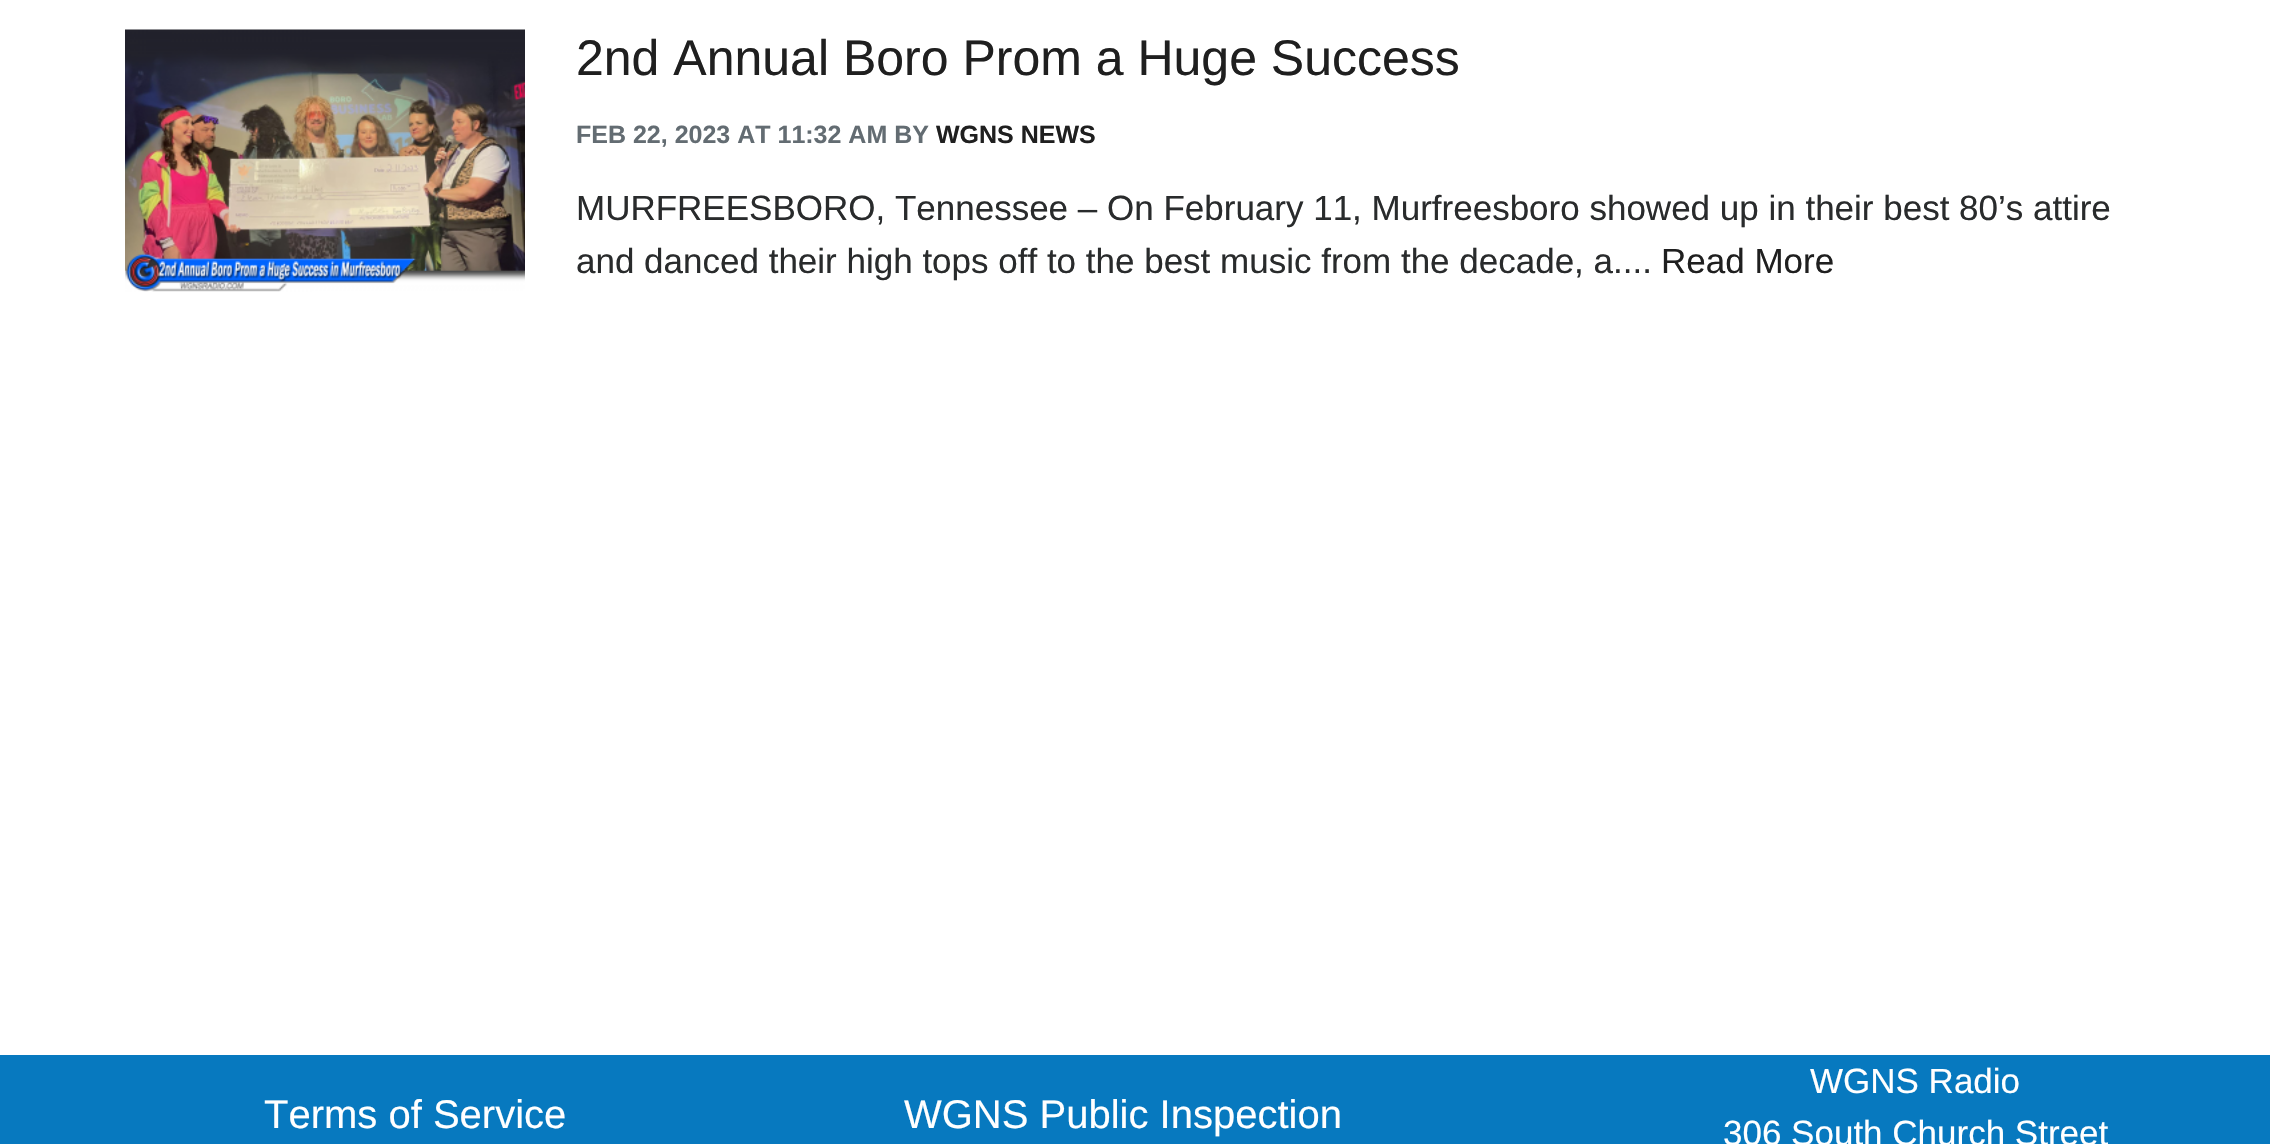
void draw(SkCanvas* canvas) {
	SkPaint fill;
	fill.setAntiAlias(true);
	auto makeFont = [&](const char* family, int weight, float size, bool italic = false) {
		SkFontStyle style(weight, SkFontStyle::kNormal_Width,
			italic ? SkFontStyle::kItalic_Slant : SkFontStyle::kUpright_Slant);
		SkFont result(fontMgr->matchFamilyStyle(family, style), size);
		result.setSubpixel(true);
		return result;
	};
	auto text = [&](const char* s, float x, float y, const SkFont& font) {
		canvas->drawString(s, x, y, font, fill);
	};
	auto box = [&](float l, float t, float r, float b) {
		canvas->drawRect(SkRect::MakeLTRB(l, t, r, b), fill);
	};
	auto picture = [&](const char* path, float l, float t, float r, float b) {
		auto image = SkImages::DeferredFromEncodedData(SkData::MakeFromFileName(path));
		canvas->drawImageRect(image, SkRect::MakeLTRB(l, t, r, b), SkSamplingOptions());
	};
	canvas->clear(0xFFFFFFFF);
	picture("image0.png", 125, 29, 525, 292);
	fill.setColor(0xFF0779BF);
	box(0, 1055, 2270, 1144);
	auto font1 = makeFont("Liberation Sans", 400, 50);
	fill.setColor(0xFF1F1F1F);
	text("2nd Annual Boro Prom a Huge Success", 576, 75, font1);
	auto font2 = makeFont("Liberation Sans", 700, 25);
	fill.setColor(0xFF636C72);
	text("FEB 22, 2023 AT 11:32 AM BY", 576, 143, font2);
	fill.setColor(0xFF1F1F1F);
	text("WGNS NEWS", 936, 143, font2);
	auto font3 = makeFont("Liberation Sans", 400, 35);
	fill.setColor(0xFF292B2C);
	text("MURFREESBORO, Tennessee – On February 11, Murfreesboro showed up in their best 80’s attire", 576, 220, font3);
	text("and danced their high tops off to the best music from the decade, a....", 576, 273, font3);
	fill.setColor(0xFF1F1F1F);
	text("Read More", 1661, 273, font3);
	auto font4 = makeFont("Liberation Sans", 400, 40);
	fill.setColor(0xFFFFFFFF);
	text("Terms of Service", 264, 1128, font4);
	text("WGNS Public Inspection", 904, 1128, font4);
	text("WGNS Radio", 1810, 1093, font3);
	text("306 South Church Street", 1723, 1145, font3);
}
